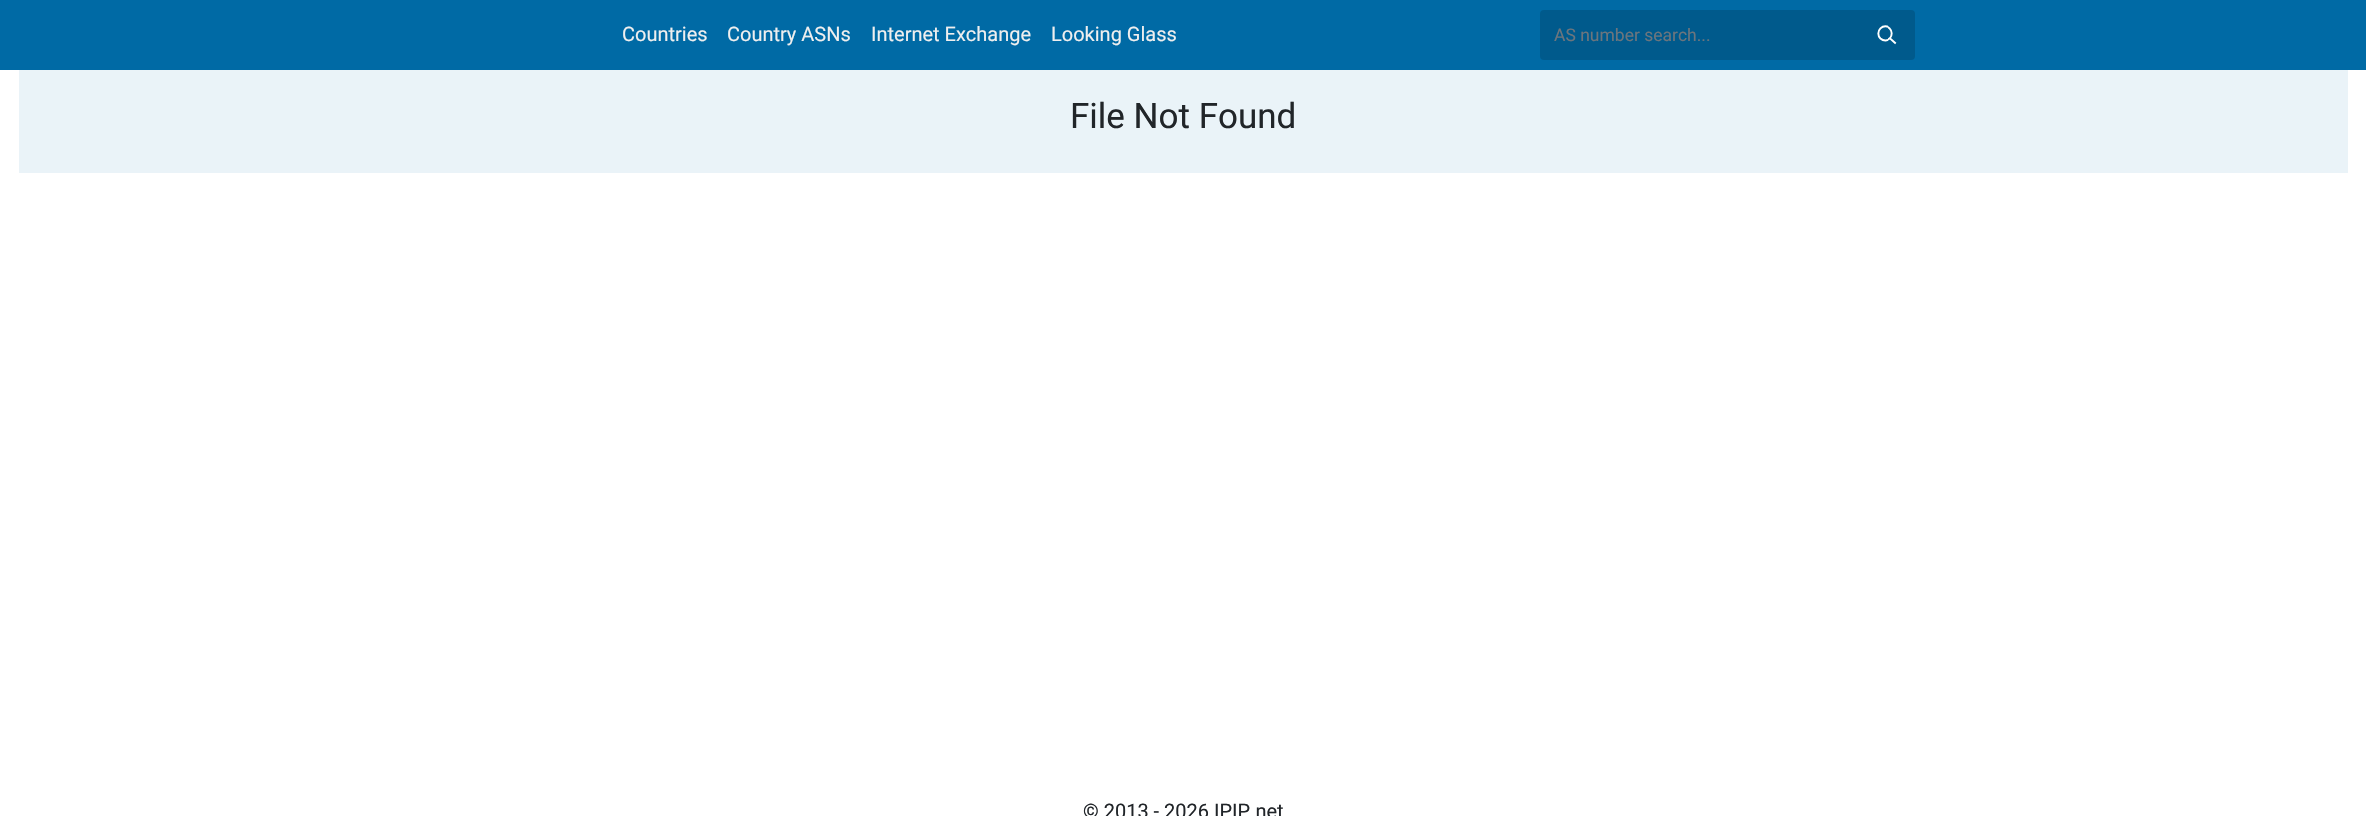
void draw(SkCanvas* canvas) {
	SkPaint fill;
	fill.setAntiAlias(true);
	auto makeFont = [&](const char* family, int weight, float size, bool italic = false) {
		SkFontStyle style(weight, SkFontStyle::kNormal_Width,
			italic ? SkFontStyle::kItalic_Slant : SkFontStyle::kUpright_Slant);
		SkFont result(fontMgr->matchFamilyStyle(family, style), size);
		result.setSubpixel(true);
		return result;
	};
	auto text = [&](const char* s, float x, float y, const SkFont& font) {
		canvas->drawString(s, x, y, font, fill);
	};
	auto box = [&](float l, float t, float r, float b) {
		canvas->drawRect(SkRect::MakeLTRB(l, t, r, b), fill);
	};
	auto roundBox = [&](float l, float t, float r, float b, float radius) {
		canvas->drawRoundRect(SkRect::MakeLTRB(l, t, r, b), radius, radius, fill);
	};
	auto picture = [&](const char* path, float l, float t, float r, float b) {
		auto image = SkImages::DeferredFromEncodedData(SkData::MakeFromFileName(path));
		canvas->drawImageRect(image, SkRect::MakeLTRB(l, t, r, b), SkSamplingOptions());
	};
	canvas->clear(0xFFFFFFFF);
	fill.setColor(0xFF006AA5);
	box(0, 0, 2366, 70);
	fill.setColor(0xFF005A8C);
	roundBox(1540, 10, 1915, 60, 4);
	picture("image0.png", 1877, 25, 1897, 45);
	fill.setColor(0xFFEAF3F8);
	box(19, 70, 2348, 173);
	auto font1 = makeFont("Roboto", 400, 20);
	fill.setColor(0xFFEFEFEF);
	text("Countries", 622, 41, font1);
	text("Country ASNs", 727, 41, font1);
	text("Internet Exchange", 871, 41, font1);
	text("Looking Glass", 1051, 41, font1);
	auto font2 = makeFont("Roboto", 400, 17.5f);
	fill.setColor(0xFF6C757D);
	text("AS number search...", 1554, 41, font2);
	auto font3 = makeFont("Roboto", 400, 35);
	fill.setColor(0xFF212529);
	text("File Not Found", 1070, 128, font3);
	text("© 2013 - 2026 IPIP.net", 1083, 818, font1);
}
